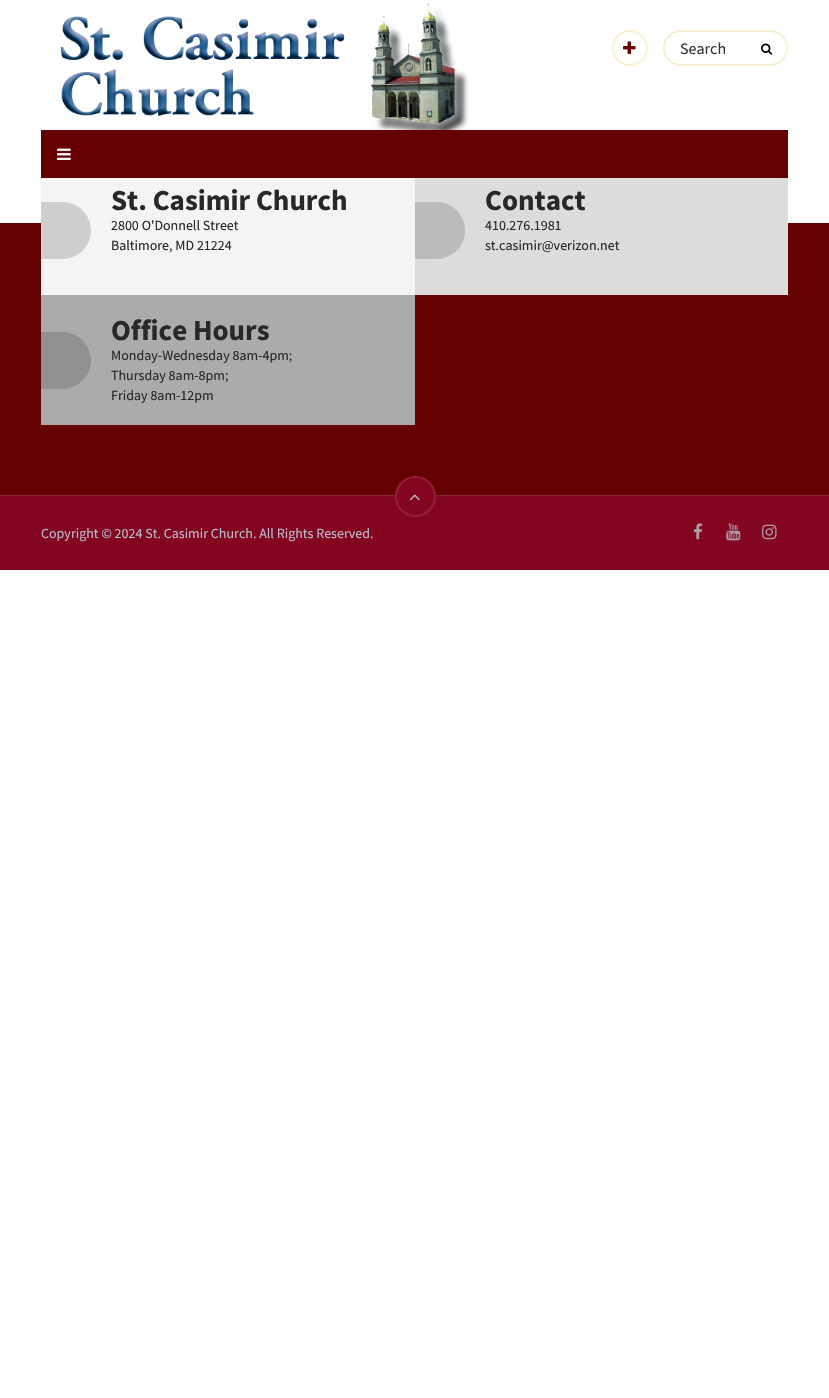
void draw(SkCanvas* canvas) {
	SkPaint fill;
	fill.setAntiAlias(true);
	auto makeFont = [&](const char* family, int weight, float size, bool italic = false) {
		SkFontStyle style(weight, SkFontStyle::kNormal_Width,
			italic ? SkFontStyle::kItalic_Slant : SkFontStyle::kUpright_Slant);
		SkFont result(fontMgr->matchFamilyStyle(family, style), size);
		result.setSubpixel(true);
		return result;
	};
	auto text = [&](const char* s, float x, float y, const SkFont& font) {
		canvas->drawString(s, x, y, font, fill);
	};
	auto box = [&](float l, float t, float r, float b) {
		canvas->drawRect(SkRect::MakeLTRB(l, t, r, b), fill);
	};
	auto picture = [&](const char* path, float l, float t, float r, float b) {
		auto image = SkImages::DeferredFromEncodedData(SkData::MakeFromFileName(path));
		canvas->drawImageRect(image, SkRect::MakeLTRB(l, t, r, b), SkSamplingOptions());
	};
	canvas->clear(0xFFFFFFFF);
	picture("image0.png", 60, 3, 469, 130);
	fill.setStyle(SkPaint::kStroke_Style);
	fill.setStrokeWidth(2);
	fill.setColor(0xFFF9F0D1);
	canvas->drawCircle(630, 48, 17, fill);
	picture("image1.png", 623, 41, 636, 54);
	canvas->drawRoundRect(SkRect::MakeLTRB(664, 31, 787, 65), 17, 17, fill);
	picture("image2.png", 761, 43, 773, 55);
	fill.setStyle(SkPaint::kFill_Style);
	fill.setColor(0xFF660102);
	box(41, 130, 788, 178);
	picture("image3.png", 57, 148, 71, 160);
	box(0, 223, 829, 495);
	fill.setColor(0xFFF4F4F4);
	box(41, 178, 415, 295);
	fill.setColor(0xFFCFCFCF);
	canvas->drawPath(SkPathBuilder().moveTo(41, 202).lineTo(62.5f, 202).cubicTo(78, 202, 91, 215, 91, 230.5f).cubicTo(91, 246, 78, 259, 62.5f, 259).lineTo(41, 259).close().detach(), fill);
	fill.setColor(0xFFDCDCDC);
	box(415, 178, 788, 295);
	fill.setColor(0xFFBBBBBB);
	canvas->drawPath(SkPathBuilder().moveTo(415, 202).lineTo(436.5f, 202).cubicTo(452, 202, 465, 215, 465, 230.5f).cubicTo(465, 246, 452, 259, 436.5f, 259).lineTo(415, 259).close().detach(), fill);
	fill.setColor(0xFFABABAB);
	box(41, 295, 415, 425);
	fill.setColor(0xFF919191);
	canvas->drawPath(SkPathBuilder().moveTo(41, 332).lineTo(62.5f, 332).cubicTo(78, 332, 91, 345, 91, 360.5f).cubicTo(91, 376, 78, 389, 62.5f, 389).lineTo(41, 389).close().detach(), fill);
	fill.setColor(0xFF840520);
	box(0, 496, 829, 570);
	fill.setColor(0xFF901E36);
	box(0, 495, 829, 496);
	fill.setColor(0xFF840520);
	canvas->drawCircle(415.5f, 496.5f, 20.5f, fill);
	fill.setStyle(SkPaint::kStroke_Style);
	fill.setColor(0x1AFFFFFF);
	canvas->drawCircle(415.5f, 496.5f, 19.5f, fill);
	picture("image4.png", 409, 494, 420, 501);
	picture("image5.png", 693, 523, 703, 540);
	picture("image6.png", 726, 523, 741, 541);
	picture("image7.png", 762, 524, 777, 540);
	auto font1 = makeFont("Source Sans Pro", 400, 16);
	fill.setStyle(SkPaint::kFill_Style);
	fill.setColor(0xFF333333);
	text("Search", 680, 54, font1);
	auto font2 = makeFont("Source Sans Pro", 700, 29);
	fill.setColor(0xFF282828);
	text("St. Casimir Church", 111, 210, font2);
	auto font3 = makeFont("Source Sans Pro", 400, 14);
	text("2800 O'Donnell Street", 111, 230, font3);
	text("Baltimore, MD 21224", 111, 250, font3);
	text("Contact", 485, 210, font2);
	text("410.276.1981", 485, 230, font3);
	text("st.casimir@verizon.net", 485, 250, font3);
	text("Office Hours", 111, 340, font2);
	text("Monday-Wednesday 8am-4pm;", 111, 360, font3);
	text("Thursday 8am-8pm;", 111, 380, font3);
	text("Friday 8am-12pm", 111, 400, font3);
	fill.setColor(0xFFB7BFCF);
	text("Copyright © 2024 St. Casimir Church. All Rights Reserved.", 41, 538, font3);
}
